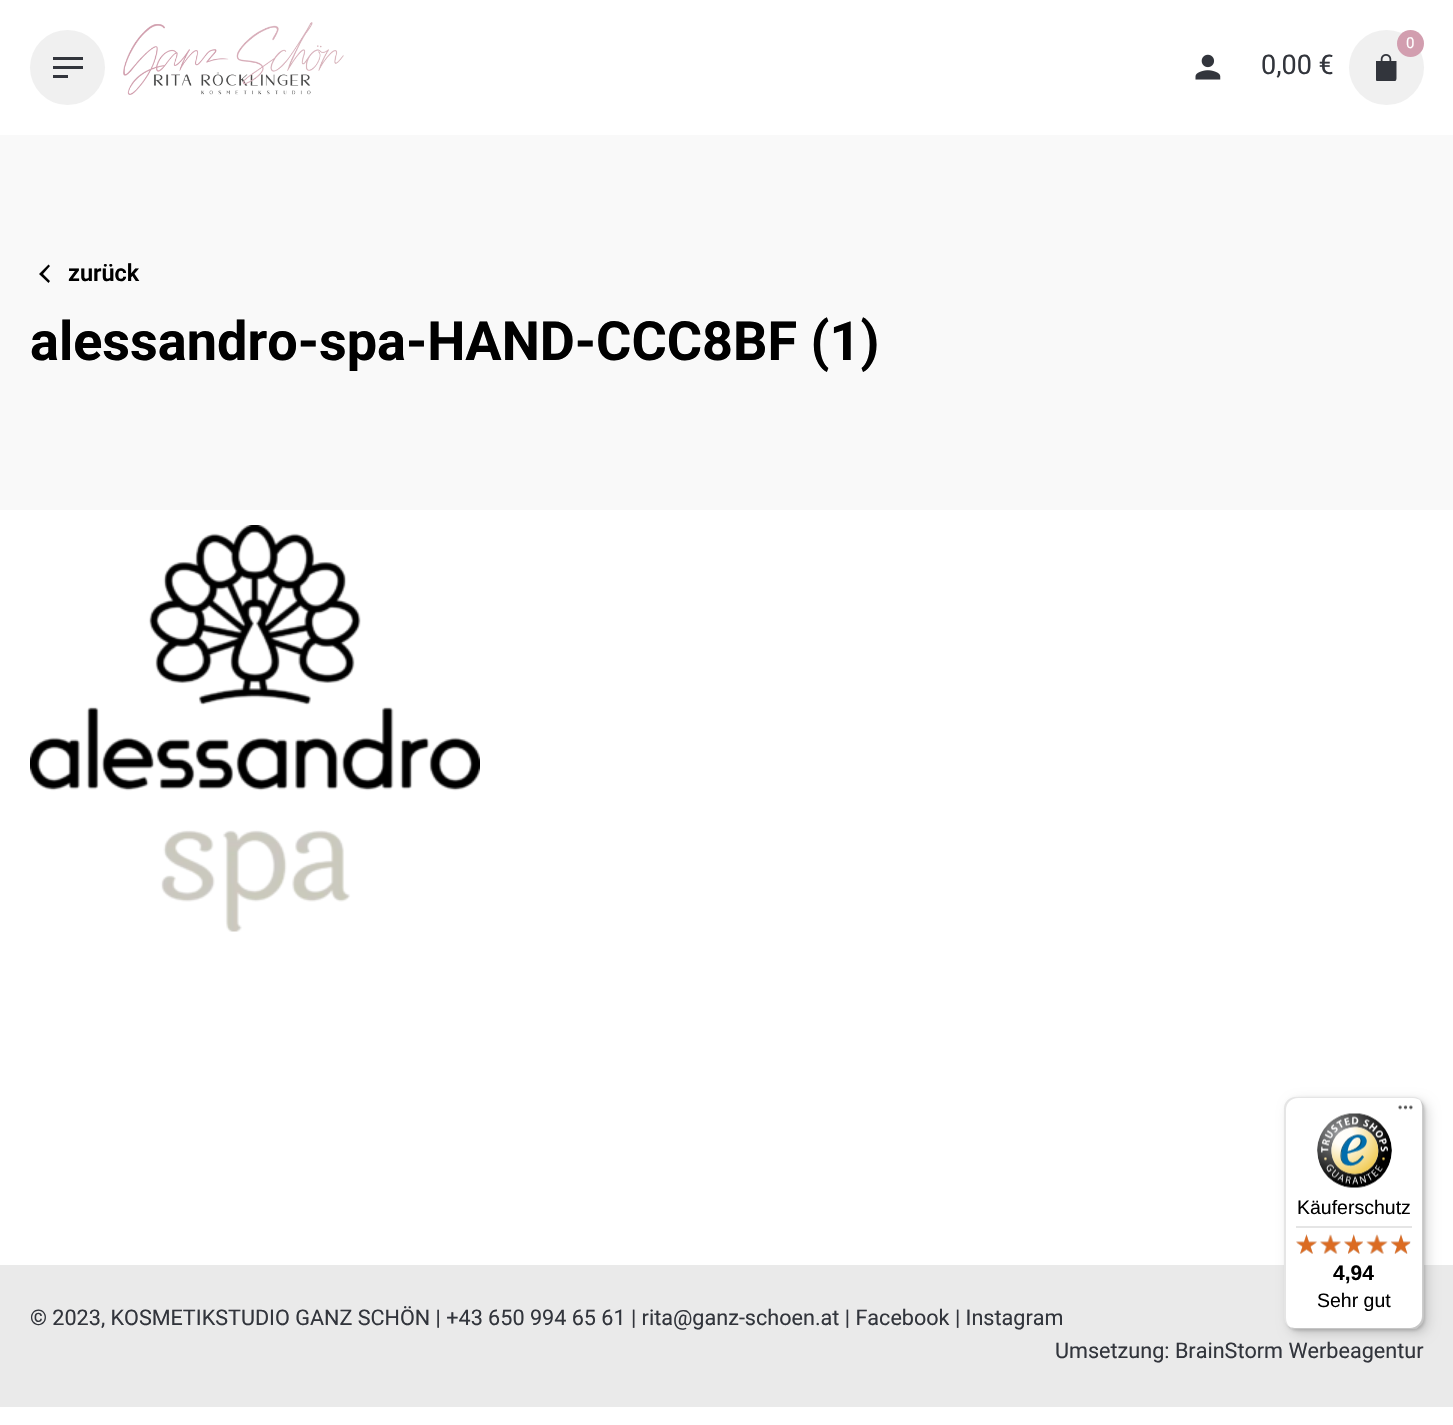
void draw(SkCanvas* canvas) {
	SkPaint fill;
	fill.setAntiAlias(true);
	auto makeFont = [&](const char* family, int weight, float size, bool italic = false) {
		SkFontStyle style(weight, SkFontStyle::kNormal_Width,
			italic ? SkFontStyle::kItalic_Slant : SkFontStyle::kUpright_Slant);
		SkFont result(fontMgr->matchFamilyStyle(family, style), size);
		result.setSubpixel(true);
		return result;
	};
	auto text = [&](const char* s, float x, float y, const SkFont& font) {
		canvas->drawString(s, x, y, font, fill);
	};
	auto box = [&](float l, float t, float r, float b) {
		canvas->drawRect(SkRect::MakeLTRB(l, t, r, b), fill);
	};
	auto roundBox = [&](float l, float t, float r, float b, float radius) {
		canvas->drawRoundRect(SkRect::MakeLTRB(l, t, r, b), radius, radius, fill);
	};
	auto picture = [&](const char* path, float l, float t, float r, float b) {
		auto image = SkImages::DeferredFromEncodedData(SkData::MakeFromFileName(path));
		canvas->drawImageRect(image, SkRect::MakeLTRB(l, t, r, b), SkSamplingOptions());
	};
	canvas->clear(0xFFFFFFFF);
	fill.setColor(0xFFF0F0F0);
	canvas->drawCircle(67.5f, 67.5f, 37.5f, fill);
	fill.setColor(0xFF32353C);
	box(53, 57, 83, 60);
	box(53, 66, 83, 69);
	box(53, 75, 68, 78);
	picture("image0.png", 123, 22, 344, 95);
	picture("image1.png", 1195, 54, 1221, 80);
	fill.setColor(0xFFF0F0F0);
	canvas->drawCircle(1386.5f, 67.5f, 37.5f, fill);
	fill.setColor(0xFFD29EAF);
	canvas->drawCircle(1410.5f, 43.5f, 13.5f, fill);
	picture("image2.png", 1376, 54, 1397, 81);
	fill.setColor(0xFFF9F9F9);
	box(0, 135, 1453, 510);
	fill.setColor(0xFF000000);
	canvas->drawPath(SkPathBuilder().moveTo(50, 266).lineTo(43, 274).lineTo(50, 281).lineTo(48.5f, 283).lineTo(39, 274).lineTo(48.5f, 264.5f).close().detach(), fill);
	picture("image3.png", 30, 525, 480, 932);
	fill.setColor(0xFFEAEAEA);
	box(0, 1265, 1453, 1407);
	fill.setColor(0x26000000);
	fill.setMaskFilter(SkMaskFilter::MakeBlur(kNormal_SkBlurStyle, 6));
	canvas->drawRoundRect(SkRect::MakeLTRB(1289, 1101, 1428, 1334), 12, 12, fill);
	fill.setMaskFilter(nullptr);
	fill.setMaskFilter(SkMaskFilter::MakeBlur(kNormal_SkBlurStyle, 1.5f));
	canvas->drawRoundRect(SkRect::MakeLTRB(1286, 1098, 1425, 1331), 12, 12, fill);
	fill.setMaskFilter(nullptr);
	fill.setColor(0xFFFFFFFF);
	roundBox(1284, 1097, 1424, 1329, 12);
	fill.setColor(0x1A000000);
	canvas->drawPath(SkPathBuilder().moveTo(1298, 1098).lineTo(1413, 1098).cubicTo(1416, 1098, 1418, 1099, 1420, 1100).cubicTo(1418, 1098, 1415, 1097, 1412, 1097).lineTo(1296, 1097).cubicTo(1289, 1097, 1284, 1102, 1284, 1109).lineTo(1284, 1317).cubicTo(1284, 1322, 1287, 1326, 1291, 1328).cubicTo(1288, 1326, 1286, 1322, 1286, 1318).lineTo(1286, 1110).cubicTo(1286, 1103, 1291, 1098, 1298, 1098).close().detach(), fill);
	fill.setColor(0x33000000);
	canvas->drawPath(SkPathBuilder().moveTo(1289, 1326).cubicTo(1291, 1328, 1293, 1329, 1296, 1329).lineTo(1412, 1329).cubicTo(1419, 1329, 1424, 1324, 1424, 1317).lineTo(1424, 1109).cubicTo(1424, 1105, 1422, 1102, 1420, 1100).cubicTo(1421, 1102, 1422, 1104, 1422, 1107).lineTo(1422, 1316).cubicTo(1422, 1322, 1417, 1328, 1410, 1328).lineTo(1294, 1328).cubicTo(1292, 1328, 1290, 1327, 1289, 1326).close().detach(), fill);
	fill.setColor(0x33323232);
	canvas->drawPath(SkPathBuilder().moveTo(1288, 1326).cubicTo(1290, 1328, 1293, 1329, 1296, 1329).lineTo(1412, 1329).cubicTo(1419, 1329, 1424, 1324, 1424, 1317).lineTo(1424, 1109).cubicTo(1424, 1105, 1422, 1102, 1420, 1100).cubicTo(1422, 1102, 1423, 1105, 1423, 1108).lineTo(1423, 1316).cubicTo(1423, 1323, 1417, 1328, 1411, 1328).lineTo(1295, 1328).cubicTo(1292, 1328, 1290, 1327, 1288, 1326).close().detach(), fill);
	fill.setColor(0x4DFFFFFF);
	canvas->drawPath(SkPathBuilder().moveTo(1287, 1325).cubicTo(1289, 1327, 1292, 1329, 1296, 1329).lineTo(1412, 1329).cubicTo(1419, 1329, 1424, 1324, 1424, 1317).lineTo(1424, 1109).cubicTo(1424, 1105, 1422, 1102, 1420, 1100).cubicTo(1422, 1102, 1423, 1105, 1423, 1108).lineTo(1423, 1316).cubicTo(1423, 1323, 1417, 1328, 1411, 1328).lineTo(1295, 1328).cubicTo(1292, 1328, 1289, 1327, 1287, 1325).close().detach(), fill);
	picture("image4.png", 1398, 1105, 1413, 1110);
	picture("image5.png", 1317, 1113, 1392, 1188);
	fill.setColor(0xFFE5E5E5);
	box(1296, 1226, 1412, 1228);
	picture("image6.png", 1296, 1234, 1317, 1254);
	picture("image7.png", 1320, 1235, 1341, 1254);
	picture("image8.png", 1344, 1234, 1363, 1254);
	picture("image9.png", 1367, 1235, 1387, 1254);
	picture("image10.png", 1391, 1234, 1411, 1254);
	picture("image11.png", 1296, 1234, 1317, 1254);
	picture("image12.png", 1320, 1234, 1341, 1254);
	picture("image13.png", 1344, 1234, 1363, 1254);
	picture("image14.png", 1366, 1234, 1388, 1254);
	picture("image15.png", 1391, 1234, 1410, 1254);
	auto font1 = makeFont("Roboto", 400, 15);
	fill.setColor(0xFFFFFFFF);
	text("0", 1406, 48, font1);
	auto font2 = makeFont("Roboto", 400, 27);
	fill.setColor(0xFF32353C);
	text("0,00 €", 1261, 74, font2);
	auto font3 = makeFont("Roboto", 600, 23.5f);
	fill.setColor(0xFF000000);
	text("zurück", 68, 281, font3);
	auto font4 = makeFont("Roboto", 700, 54);
	text("alessandro-spa-HAND-CCC8BF (1)", 30, 360, font4);
	auto font5 = makeFont("Roboto", 400, 21.6f);
	fill.setColor(0xFF32353C);
	text("© 2023, KOSMETIKSTUDIO GANZ SCHÖN | +43 650 994 65 61 | rita@ganz-schoen.at | Facebook | Instagram", 30, 1325, font5);
	text("Umsetzung: BrainStorm Werbeagentur", 1055, 1358, font5);
	auto font6 = makeFont("Liberation Sans", 400, 19.5f);
	fill.setColor(0xFF000000);
	text("Käuferschutz", 1297, 1214, font6);
	auto font7 = makeFont("Liberation Sans", 700, 21);
	text("4,94", 1333, 1280, font7);
	text("Sehr gut", 1317, 1307, font6);
}
